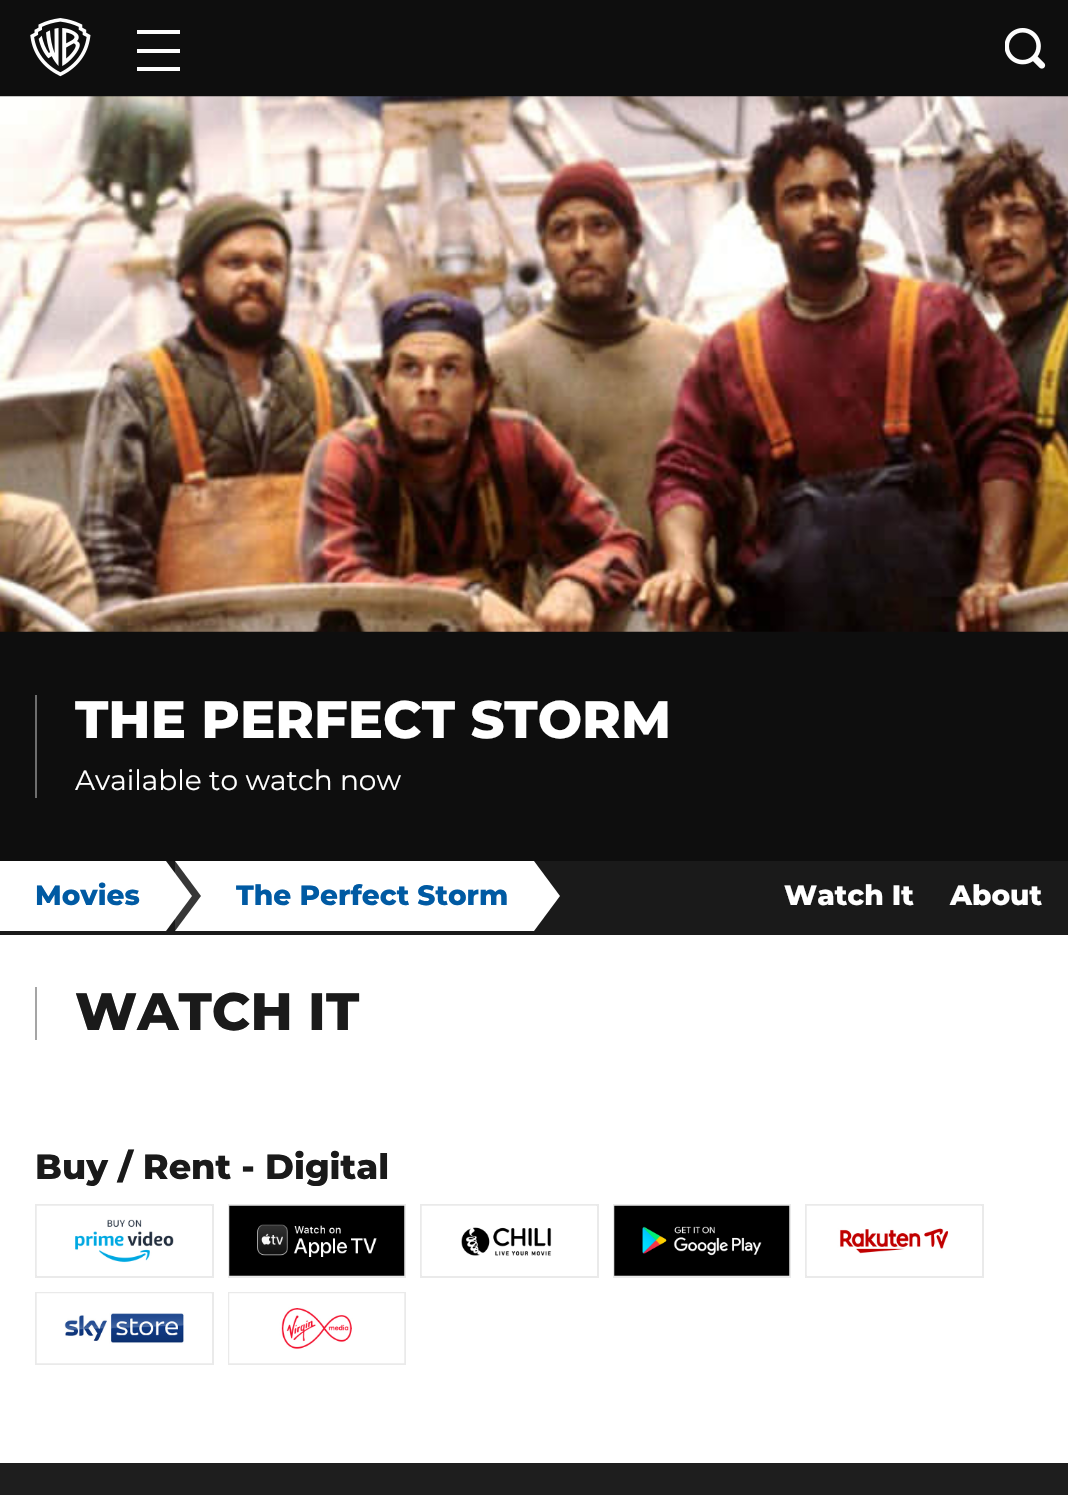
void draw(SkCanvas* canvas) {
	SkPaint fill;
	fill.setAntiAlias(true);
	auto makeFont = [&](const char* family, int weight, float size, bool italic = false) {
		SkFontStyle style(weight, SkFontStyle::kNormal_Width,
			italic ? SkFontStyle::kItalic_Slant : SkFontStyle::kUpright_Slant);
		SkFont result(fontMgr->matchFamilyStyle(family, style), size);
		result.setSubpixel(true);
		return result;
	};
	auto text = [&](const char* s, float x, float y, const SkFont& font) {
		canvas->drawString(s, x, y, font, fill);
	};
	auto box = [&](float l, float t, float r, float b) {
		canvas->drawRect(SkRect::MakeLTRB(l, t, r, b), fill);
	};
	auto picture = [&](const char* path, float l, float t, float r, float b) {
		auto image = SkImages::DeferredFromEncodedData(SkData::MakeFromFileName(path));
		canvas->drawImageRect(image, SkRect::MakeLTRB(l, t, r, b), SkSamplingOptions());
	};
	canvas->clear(0xFF0E0E0E);
	picture("image0.png", 30, 18, 91, 77);
	fill.setColor(0xFFFDFDFD);
	box(137, 30, 180, 34);
	box(137, 49, 180, 53);
	box(137, 67, 180, 71);
	picture("image1.png", 1005, 28, 1046, 69);
	picture("image2.png", 0, 96, 1068, 632);
	fill.setColor(0xFF6E6E6E);
	box(35, 695, 37, 798);
	fill.setColor(0xFF1A1A1A);
	box(0, 861, 1068, 935);
	fill.setColor(0xFFFFFFFF);
	box(0, 861, 166, 931);
	box(175, 861, 534, 931);
	fill.setColor(0xFF373737);
	canvas->drawPath(SkPathBuilder().moveTo(175, 931).lineTo(175, 861).lineTo(201, 896).close().detach(), fill);
	fill.setColor(0xFFFFFFFF);
	canvas->drawPath(SkPathBuilder().moveTo(166, 931).lineTo(166, 861).lineTo(192, 896).close().detach(), fill);
	canvas->drawPath(SkPathBuilder().moveTo(534, 931).lineTo(534, 861).lineTo(560, 896).close().detach(), fill);
	box(0, 935, 1068, 1463);
	fill.setColor(0xFFA5A5A5);
	box(35, 987, 37, 1040);
	fill.setStyle(SkPaint::kStroke_Style);
	fill.setStrokeWidth(2);
	fill.setColor(0xFFEAEAEA);
	canvas->drawRect(SkRect::MakeLTRB(36, 1205, 213, 1277), fill);
	picture("image3.png", 36, 1205, 211, 1275);
	canvas->drawRect(SkRect::MakeLTRB(229, 1205, 405, 1277), fill);
	picture("image4.png", 229, 1205, 405, 1276);
	canvas->drawRect(SkRect::MakeLTRB(421, 1205, 598, 1277), fill);
	picture("image5.png", 421, 1205, 596, 1275);
	canvas->drawRect(SkRect::MakeLTRB(614, 1205, 790, 1277), fill);
	picture("image6.png", 614, 1205, 790, 1276);
	canvas->drawRect(SkRect::MakeLTRB(806, 1205, 983, 1277), fill);
	picture("image7.png", 806, 1205, 981, 1275);
	canvas->drawRect(SkRect::MakeLTRB(36, 1293, 213, 1364), fill);
	picture("image8.png", 36, 1293, 212, 1364);
	canvas->drawRect(SkRect::MakeLTRB(229, 1293, 405, 1364), fill);
	picture("image9.png", 229, 1293, 405, 1364);
	fill.setStyle(SkPaint::kFill_Style);
	fill.setColor(0xFF1E1E1E);
	box(0, 1463, 1068, 1495);
	auto font1 = makeFont("Montserrat", 800, 52.5f);
	fill.setColor(0xFFFFFFFF);
	text("THE PERFECT STORM", 75, 738, font1);
	auto font2 = makeFont("Montserrat", 400, 28);
	text("Available to watch now", 75, 790, font2);
	auto font3 = makeFont("Montserrat", 800, 28);
	fill.setColor(0xFF005AA3);
	text("Movies", 35, 905, font3);
	text("The Perfect Storm", 236, 905, font3);
	fill.setColor(0xFFFFFFFF);
	text("Watch It", 784, 905, font3);
	text("About", 950, 905, font3);
	fill.setColor(0xFF1A1A1A);
	text("WATCH IT", 75, 1030, font1);
	auto font4 = makeFont("Montserrat", 800, 35);
	text("Buy / Rent - Digital", 35, 1179, font4);
}
